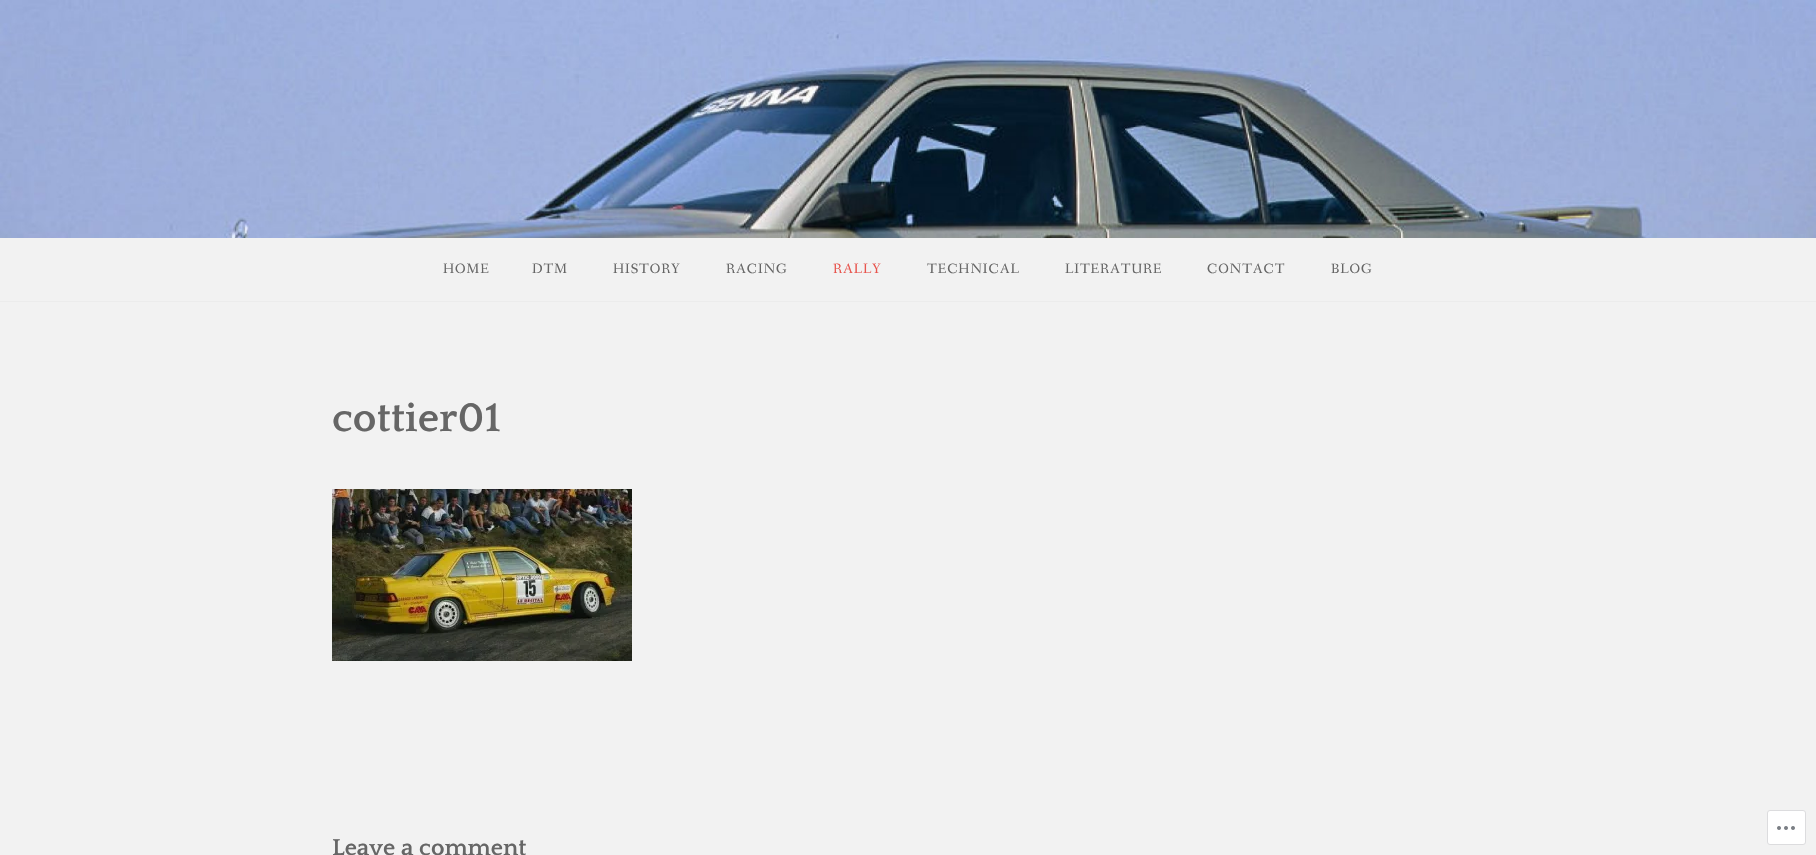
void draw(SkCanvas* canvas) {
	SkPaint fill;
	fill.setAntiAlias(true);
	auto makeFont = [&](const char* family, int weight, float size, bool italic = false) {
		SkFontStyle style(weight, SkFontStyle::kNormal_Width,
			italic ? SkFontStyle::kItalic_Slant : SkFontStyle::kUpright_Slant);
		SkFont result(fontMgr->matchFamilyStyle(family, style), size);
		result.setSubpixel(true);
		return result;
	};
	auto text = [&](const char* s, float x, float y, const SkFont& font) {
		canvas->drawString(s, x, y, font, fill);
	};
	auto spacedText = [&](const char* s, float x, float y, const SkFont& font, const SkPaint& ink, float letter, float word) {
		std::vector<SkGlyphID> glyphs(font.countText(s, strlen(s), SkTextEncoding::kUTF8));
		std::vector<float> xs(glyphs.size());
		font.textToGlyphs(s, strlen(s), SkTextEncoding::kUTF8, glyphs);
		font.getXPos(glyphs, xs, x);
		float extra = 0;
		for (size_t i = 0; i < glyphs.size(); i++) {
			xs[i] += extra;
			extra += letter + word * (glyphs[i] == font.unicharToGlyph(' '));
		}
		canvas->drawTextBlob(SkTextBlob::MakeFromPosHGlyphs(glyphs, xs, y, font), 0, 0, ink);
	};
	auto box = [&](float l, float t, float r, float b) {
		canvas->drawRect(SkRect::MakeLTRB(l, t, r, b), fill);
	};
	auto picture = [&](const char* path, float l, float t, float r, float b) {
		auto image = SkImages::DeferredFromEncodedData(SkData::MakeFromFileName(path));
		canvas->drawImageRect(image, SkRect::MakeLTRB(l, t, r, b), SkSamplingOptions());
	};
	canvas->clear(0xFFF2F2F2);
	picture("image0.png", 0, 0, 1816, 238);
	fill.setColor(0xFFECECEC);
	box(0, 301, 1816, 302);
	picture("image1.png", 332, 489, 632, 661);
	fill.setColor(0xFFFFFFFF);
	canvas->drawRoundRect(SkRect::MakeLTRB(1767.5f, 810.5f, 1805.5f, 844.5f), 2.5f, 2.5f, fill);
	fill.setStyle(SkPaint::kStroke_Style);
	fill.setStrokeWidth(1);
	fill.setColor(0xFFDCDCDE);
	canvas->drawRoundRect(SkRect::MakeLTRB(1767.5f, 810.5f, 1805.5f, 844.5f), 2.5f, 2.5f, fill);
	picture("image2.png", 1777, 826, 1795, 830);
	auto font1 = makeFont("Fanwood Text", 400, 14);
	fill.setStyle(SkPaint::kFill_Style);
	fill.setColor(0xFF666666);
	spacedText("HOME", 443, 273, font1, fill, 1, 0);
	spacedText("DTM", 532, 273, font1, fill, 1, 0);
	spacedText("HISTORY", 613, 273, font1, fill, 1, 0);
	spacedText("RACING", 726, 273, font1, fill, 1, 0);
	fill.setColor(0xFFE8554E);
	spacedText("RALLY", 833, 273, font1, fill, 1, 0);
	fill.setColor(0xFF666666);
	spacedText("TECHNICAL", 927, 273, font1, fill, 1, 0);
	spacedText("LITERATURE", 1065, 273, font1, fill, 1, 0);
	spacedText("CONTACT", 1207, 273, font1, fill, 1, 0);
	spacedText("BLOG", 1331, 273, font1, fill, 1, 0);
	auto font2 = makeFont("Quattrocento", 700, 42);
	text("cottier01", 332, 431, font2);
	auto font3 = makeFont("Quattrocento", 700, 24);
	text("Leave a comment", 332, 855, font3);
}
